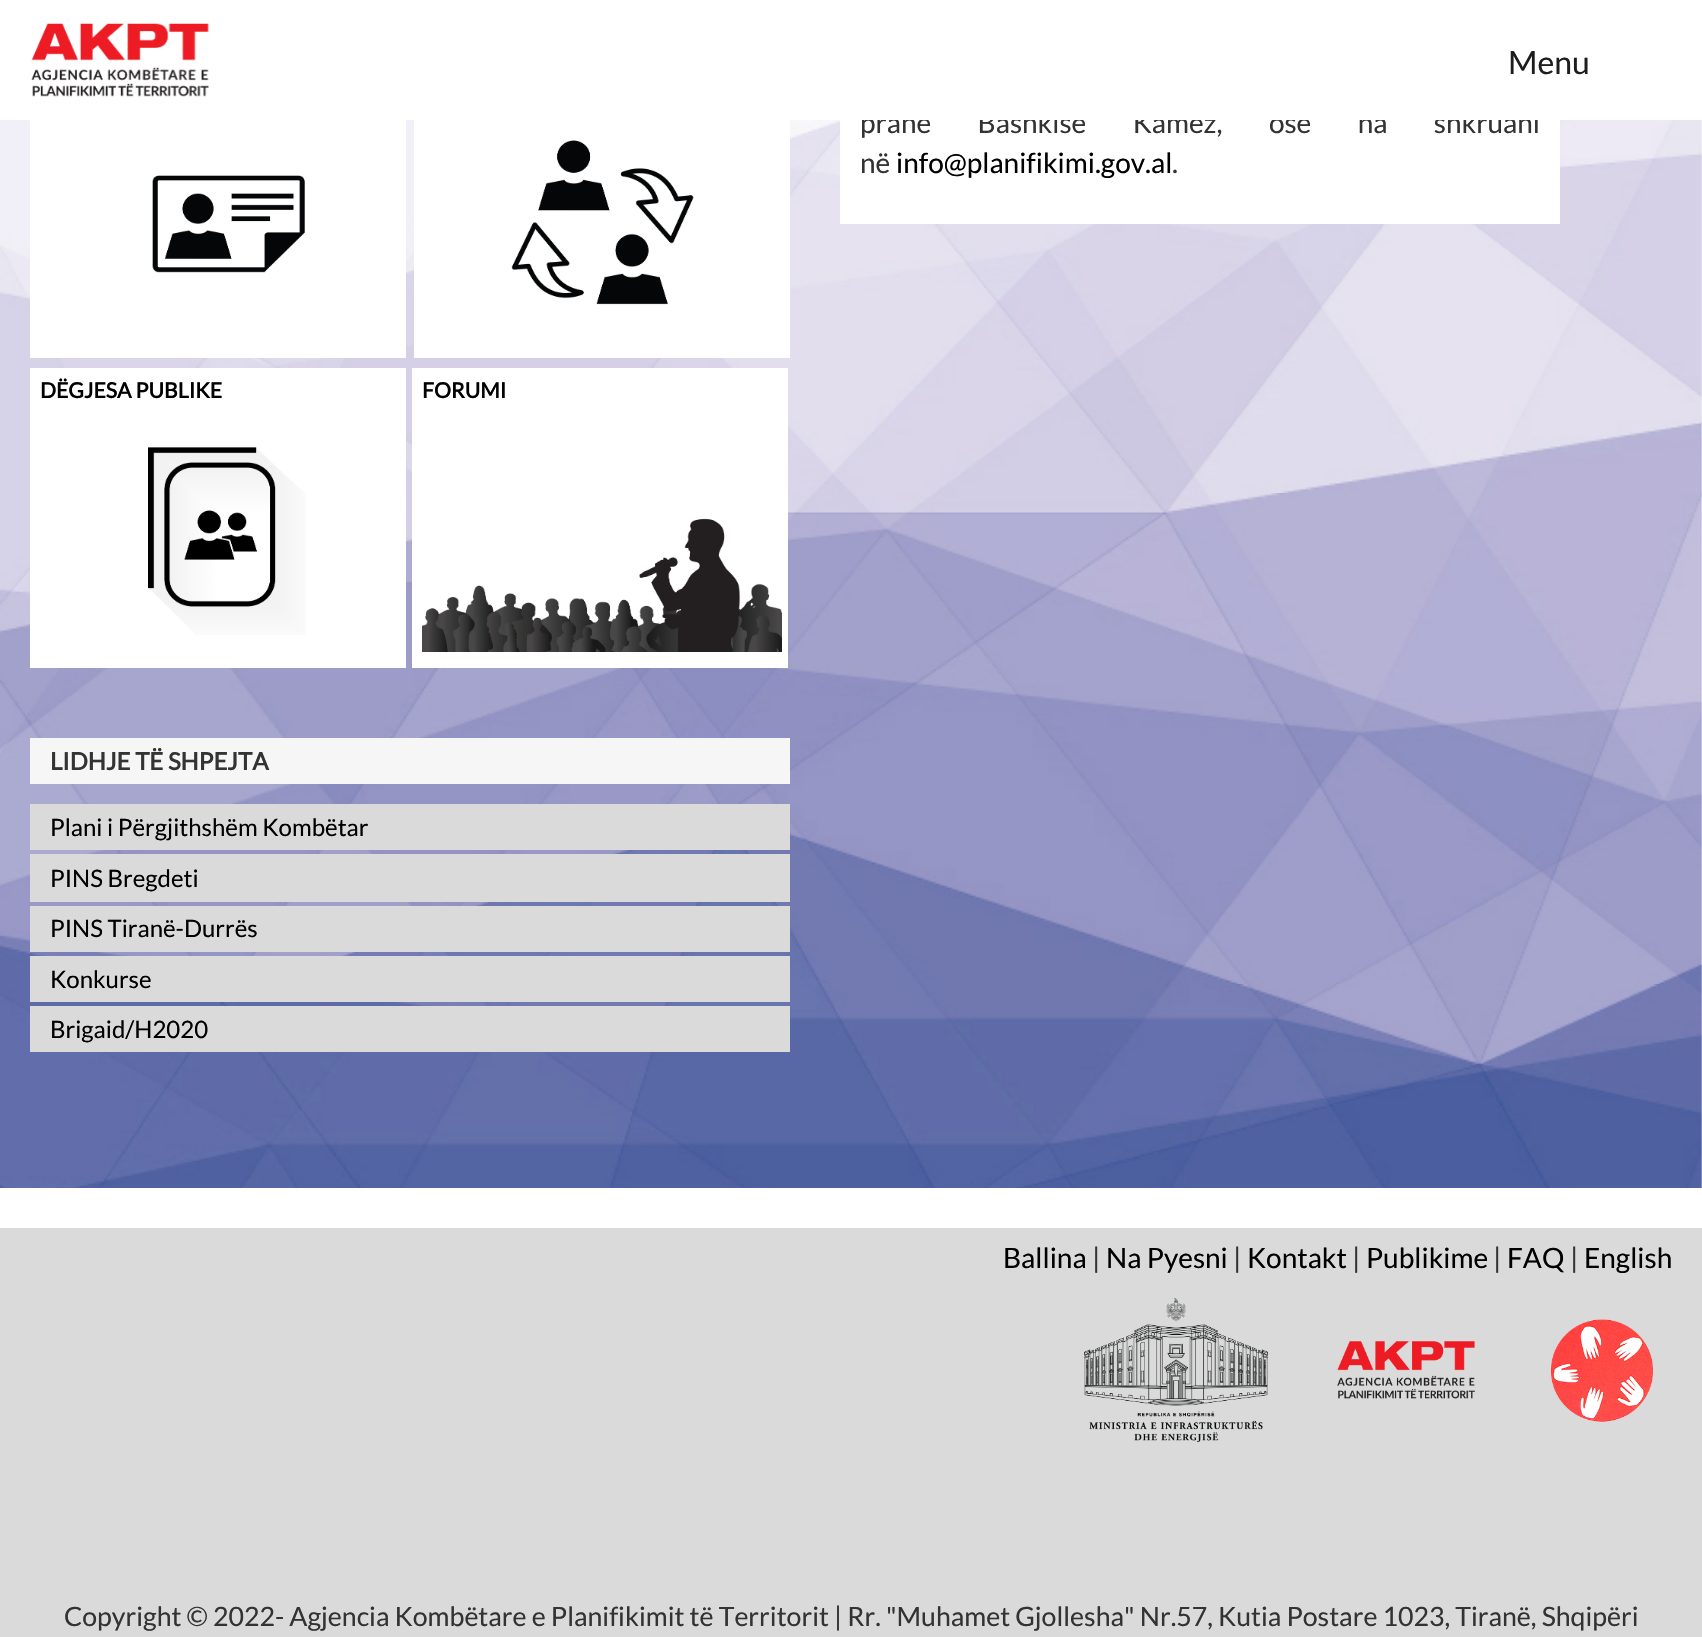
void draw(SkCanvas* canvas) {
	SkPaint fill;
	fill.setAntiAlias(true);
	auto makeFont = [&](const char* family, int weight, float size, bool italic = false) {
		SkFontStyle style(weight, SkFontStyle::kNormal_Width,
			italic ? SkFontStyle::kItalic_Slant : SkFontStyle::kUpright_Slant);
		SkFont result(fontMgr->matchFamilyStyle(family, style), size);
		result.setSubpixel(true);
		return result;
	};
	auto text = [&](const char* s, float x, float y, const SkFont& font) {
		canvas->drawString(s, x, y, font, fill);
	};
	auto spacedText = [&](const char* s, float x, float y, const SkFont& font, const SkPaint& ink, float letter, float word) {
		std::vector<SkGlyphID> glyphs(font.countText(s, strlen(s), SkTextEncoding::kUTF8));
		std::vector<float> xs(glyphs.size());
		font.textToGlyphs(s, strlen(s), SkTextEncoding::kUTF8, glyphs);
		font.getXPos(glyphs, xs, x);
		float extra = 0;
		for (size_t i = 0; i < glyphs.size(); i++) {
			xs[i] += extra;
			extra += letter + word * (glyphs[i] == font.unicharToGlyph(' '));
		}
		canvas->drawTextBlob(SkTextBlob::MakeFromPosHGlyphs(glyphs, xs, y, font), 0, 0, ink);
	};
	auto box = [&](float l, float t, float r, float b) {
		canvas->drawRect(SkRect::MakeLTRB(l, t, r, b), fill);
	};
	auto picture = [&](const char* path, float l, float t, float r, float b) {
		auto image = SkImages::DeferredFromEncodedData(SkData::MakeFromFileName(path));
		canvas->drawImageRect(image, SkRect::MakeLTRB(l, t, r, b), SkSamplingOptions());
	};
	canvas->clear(0xFFFFFFFF);
	picture("image0.png", 31, 23, 209, 97);
	picture("image1.png", 0, 120, 1702, 1188);
	fill.setColor(0xFFFFFFFF);
	box(840, 120, 1560, 224);
	box(30, 120, 406, 358);
	picture("image2.png", 152, 175, 305, 273);
	box(414, 120, 790, 358);
	picture("image3.png", 511, 140, 694, 305);
	box(30, 368, 406, 668);
	picture("image4.png", 148, 447, 306, 635);
	box(412, 368, 788, 668);
	picture("image5.png", 422, 518, 782, 652);
	fill.setColor(0xFFF6F6F6);
	box(30, 738, 790, 784);
	fill.setColor(0xFFDADADA);
	box(30, 804, 790, 850);
	box(30, 854, 790, 902);
	box(30, 906, 790, 952);
	box(30, 956, 790, 1002);
	box(30, 1006, 790, 1052);
	box(0, 1228, 1702, 1637);
	picture("image6.png", 1084, 1298, 1268, 1442);
	picture("image7.png", 1337, 1341, 1475, 1399);
	picture("image8.png", 1551, 1319, 1653, 1422);
	auto font1 = makeFont("Lato", 400, 32);
	fill.setColor(0xFF1D1D1B);
	text("Menu", 1508, 74, font1);
	auto font2 = makeFont("Lato", 400, 28);
	fill.setColor(0xFF333333);
	spacedText("pranë Bashkisë Kamëz, ose na shkruani", 860, 133, font2, fill, 0, 41);
	fill.setColor(0xFFFFFFFF);
	box(862, 112, 1539, 120);
	fill.setColor(0xFF333333);
	text("në", 860, 173, font2);
	fill.setColor(0xFF000000);
	text("info@planifikimi.gov.al", 896, 173, font2);
	fill.setColor(0xFF333333);
	text(".", 1172, 173, font2);
	auto font3 = makeFont("Lato", 700, 21.25f);
	fill.setColor(0xFF000000);
	text("DËGJESA PUBLIKE", 40, 398, font3);
	text("FORUMI", 422, 398, font3);
	auto font4 = makeFont("Lato", 700, 24);
	fill.setColor(0xFF333333);
	text("LIDHJE TË SHPEJTA", 50, 770, font4);
	auto font5 = makeFont("Lato", 400, 24);
	fill.setColor(0xFF000000);
	text("Plani i Përgjithshëm Kombëtar", 50, 836, font5);
	text("PINS Bregdeti", 50, 887, font5);
	text("PINS Tiranë-Durrës", 50, 937, font5);
	text("Konkurse", 50, 988, font5);
	text("Brigaid/H2020", 50, 1038, font5);
	text("Ballina", 1003, 1268, font2);
	fill.setColor(0xFF333333);
	text("|", 1092, 1268, font2);
	fill.setColor(0xFF000000);
	text("Na Pyesni", 1106, 1268, font2);
	fill.setColor(0xFF333333);
	text("|", 1233, 1268, font2);
	fill.setColor(0xFF000000);
	text("Kontakt", 1247, 1268, font2);
	fill.setColor(0xFF333333);
	text("|", 1352, 1268, font2);
	fill.setColor(0xFF000000);
	text("Publikime", 1366, 1268, font2);
	fill.setColor(0xFF333333);
	text("|", 1493, 1268, font2);
	fill.setColor(0xFF000000);
	text("FAQ", 1507, 1268, font2);
	fill.setColor(0xFF333333);
	text("|", 1570, 1268, font2);
	fill.setColor(0xFF000000);
	text("English", 1584, 1268, font2);
	auto font6 = makeFont("Lato", 400, 26.67f);
	fill.setColor(0xFF333333);
	text("Copyright © 2022- Agjencia Kombëtare e Planifikimit të Territorit | Rr. \"Muhamet Gjollesha\" Nr.57, Kutia Postare 1023, Tiranë, Shqipëri", 64, 1626, font6);
}
